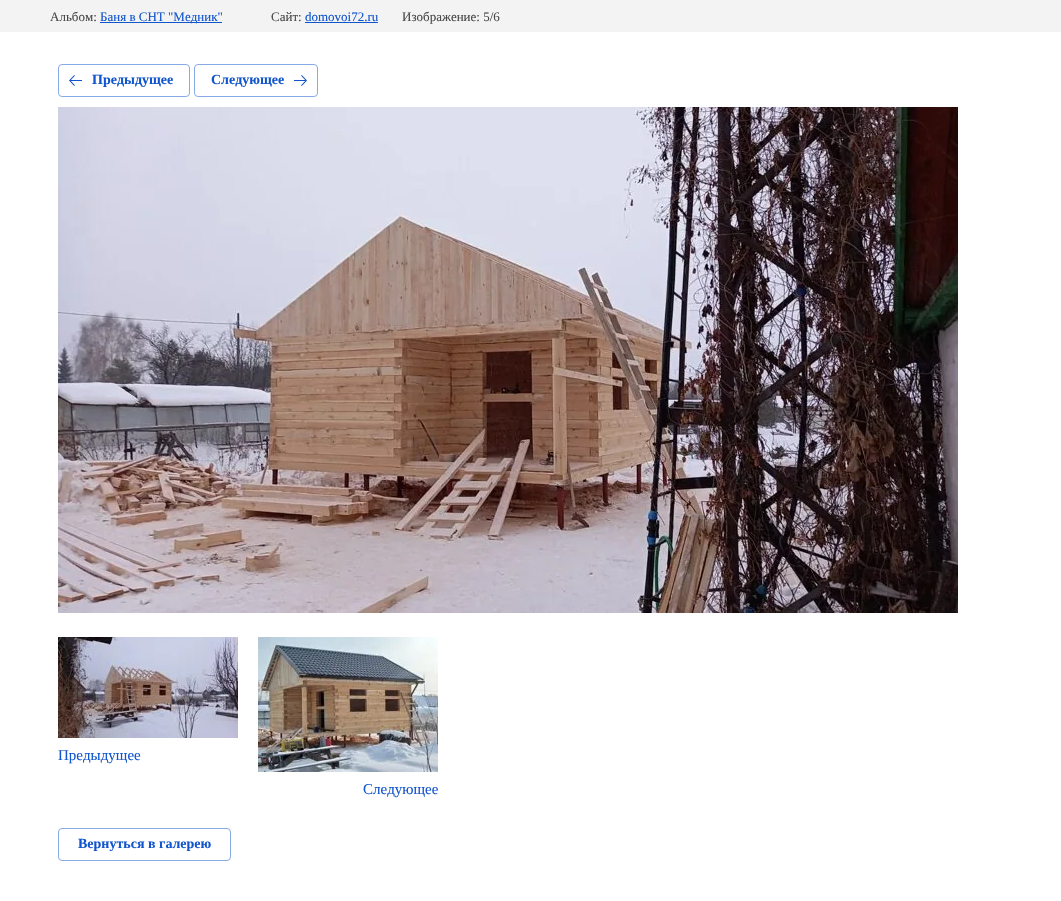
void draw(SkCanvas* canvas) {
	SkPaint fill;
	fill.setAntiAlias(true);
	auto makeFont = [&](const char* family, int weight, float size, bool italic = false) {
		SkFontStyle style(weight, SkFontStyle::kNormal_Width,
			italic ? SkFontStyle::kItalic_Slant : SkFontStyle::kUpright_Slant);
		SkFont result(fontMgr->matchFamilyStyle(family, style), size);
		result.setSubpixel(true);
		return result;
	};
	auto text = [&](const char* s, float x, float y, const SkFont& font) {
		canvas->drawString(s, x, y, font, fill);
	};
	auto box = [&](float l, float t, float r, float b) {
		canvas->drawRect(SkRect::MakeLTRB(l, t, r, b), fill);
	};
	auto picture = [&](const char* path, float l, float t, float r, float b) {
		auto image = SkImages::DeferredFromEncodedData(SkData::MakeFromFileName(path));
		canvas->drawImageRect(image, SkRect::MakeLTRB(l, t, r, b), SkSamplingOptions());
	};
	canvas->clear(0xFFFFFFFF);
	fill.setColor(0xFFF3F3F3);
	box(0, 0, 1061, 32);
	fill.setColor(0xFF1155CC);
	box(100, 22, 222, 23);
	box(305, 22, 378, 23);
	fill.setStyle(SkPaint::kStroke_Style);
	fill.setStrokeWidth(1);
	fill.setColor(0xFF88AAE6);
	canvas->drawRoundRect(SkRect::MakeLTRB(58.5f, 64.5f, 189.5f, 96.5f), 3.5f, 3.5f, fill);
	picture("image0.png", 69, 75, 82, 86);
	canvas->drawRoundRect(SkRect::MakeLTRB(194.5f, 64.5f, 317.5f, 96.5f), 3.5f, 3.5f, fill);
	picture("image1.png", 294, 75, 307, 86);
	picture("image2.png", 58, 107, 958, 613);
	picture("image3.png", 58, 637, 238, 738);
	picture("image4.png", 258, 637, 438, 772);
	canvas->drawRoundRect(SkRect::MakeLTRB(58.5f, 828.5f, 230.5f, 860.5f), 3.5f, 3.5f, fill);
	auto font1 = makeFont("Liberation Serif", 400, 13);
	fill.setStyle(SkPaint::kFill_Style);
	fill.setColor(0xFF484848);
	text("Альбом:", 50, 21, font1);
	fill.setColor(0xFF1155CC);
	text("Баня в СНТ \"Медник\"", 100, 21, font1);
	fill.setColor(0xFF484848);
	text("Сайт:", 271, 21, font1);
	fill.setColor(0xFF1155CC);
	text("domovoi72.ru", 305, 21, font1);
	fill.setColor(0xFF484848);
	text("Изображение: 5/6", 402, 21, font1);
	auto font2 = makeFont("Liberation Serif", 700, 14);
	fill.setColor(0xFF1155CC);
	text("Предыдущее", 92, 84, font2);
	text("Следующее", 211, 84, font2);
	auto font3 = makeFont("Liberation Serif", 400, 15);
	text("Предыдущее", 58, 760, font3);
	text("Следующее", 363, 794, font3);
	text("Вернуться в галерею", 78, 848, font2);
}
